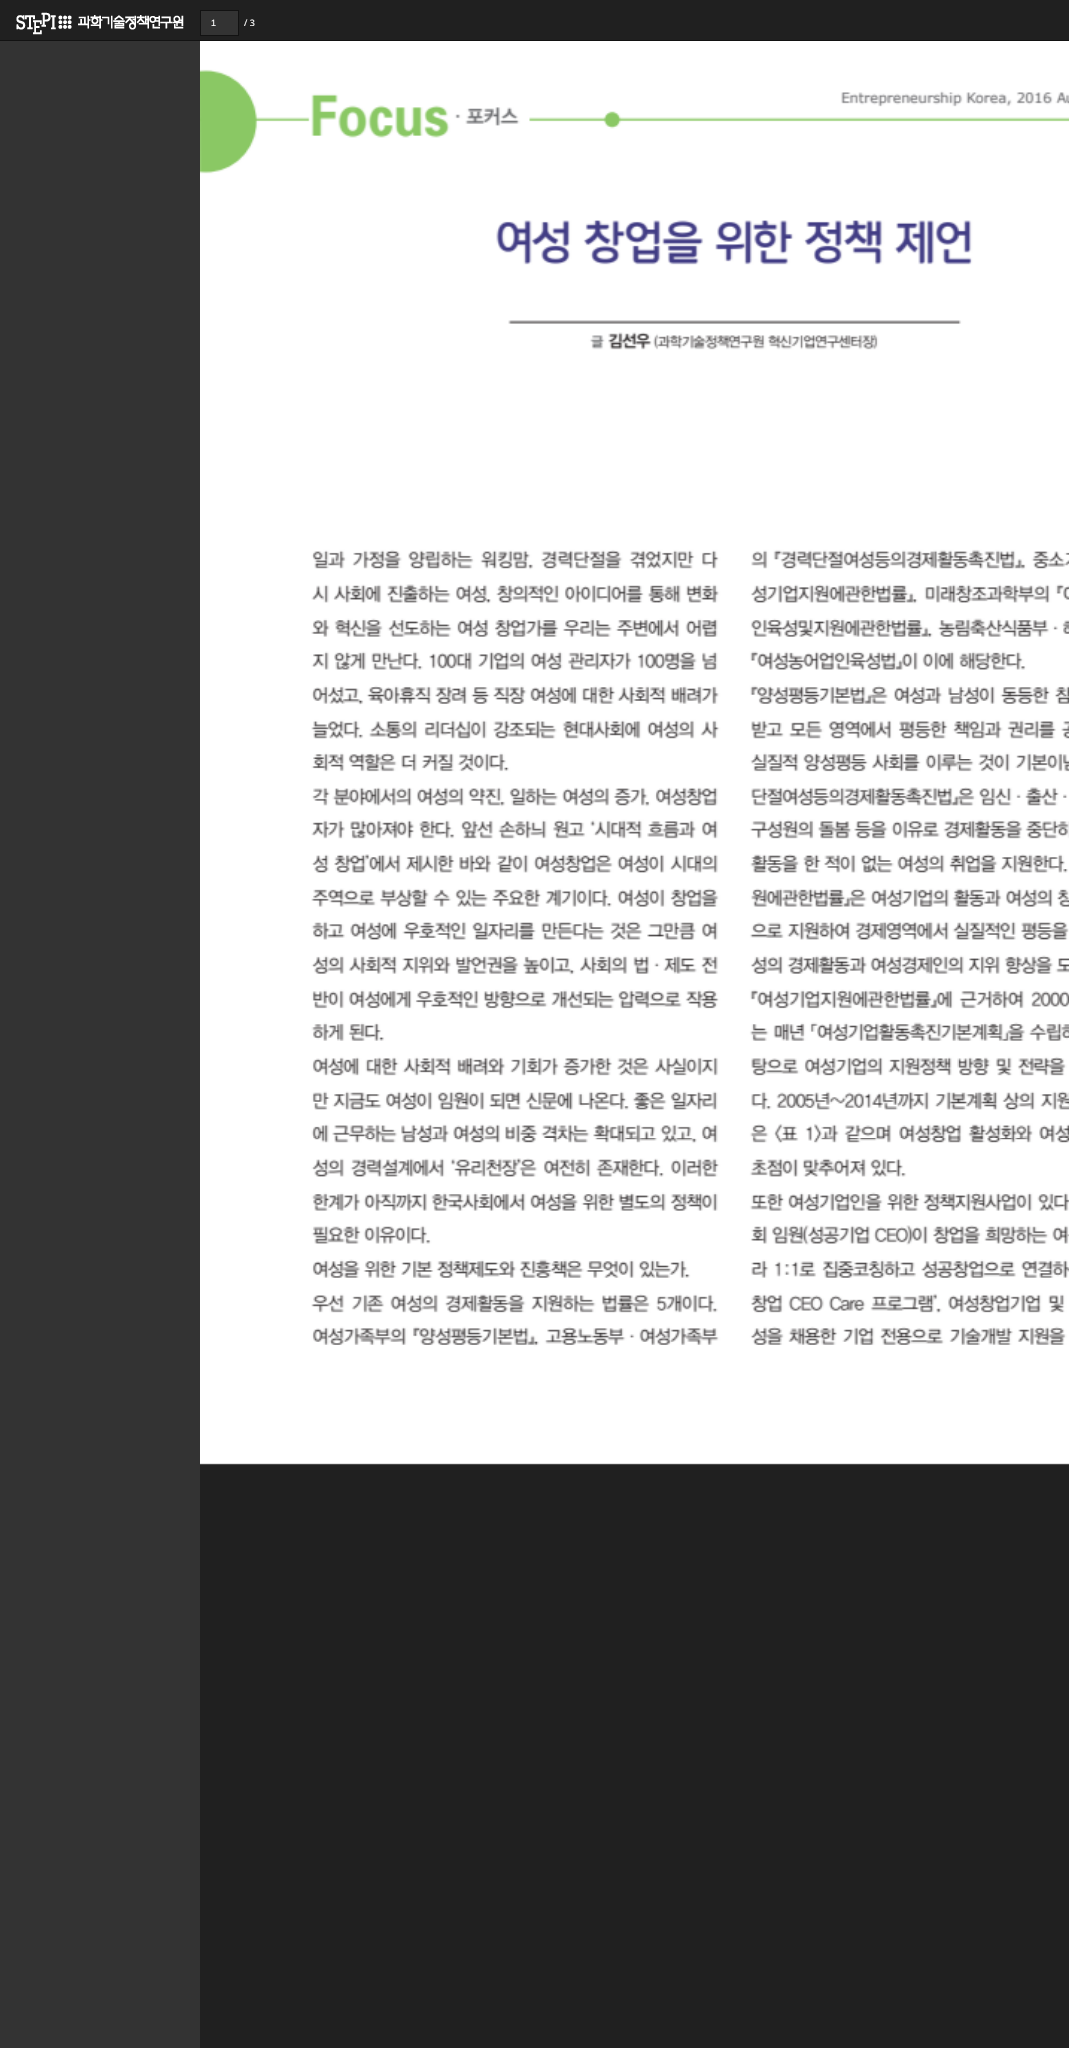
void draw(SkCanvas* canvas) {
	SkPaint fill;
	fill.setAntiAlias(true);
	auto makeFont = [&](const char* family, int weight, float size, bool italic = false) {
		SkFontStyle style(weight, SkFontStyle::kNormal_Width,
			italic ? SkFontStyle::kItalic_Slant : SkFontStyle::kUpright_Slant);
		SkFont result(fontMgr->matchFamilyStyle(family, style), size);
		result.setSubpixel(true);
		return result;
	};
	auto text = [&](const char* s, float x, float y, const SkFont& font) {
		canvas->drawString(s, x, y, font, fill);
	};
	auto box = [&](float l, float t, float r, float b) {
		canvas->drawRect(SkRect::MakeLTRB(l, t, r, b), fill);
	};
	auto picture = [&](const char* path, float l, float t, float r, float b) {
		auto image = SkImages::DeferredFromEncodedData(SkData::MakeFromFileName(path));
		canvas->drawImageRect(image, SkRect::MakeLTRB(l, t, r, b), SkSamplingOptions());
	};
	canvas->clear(0xFF333333);
	fill.setColor(0xFF202020);
	box(0, 0, 1069, 40);
	fill.setColor(0xFF121212);
	box(0, 40, 1069, 41);
	picture("image0.png", 16, 12, 184, 35);
	fill.setColor(0xFF333333);
	canvas->drawRect(SkRect::MakeLTRB(200.5f, 10.5f, 238.5f, 35.5f), fill);
	fill.setStyle(SkPaint::kStroke_Style);
	fill.setStrokeWidth(1);
	fill.setColor(0xFF121212);
	canvas->drawRect(SkRect::MakeLTRB(200.5f, 10.5f, 238.5f, 35.5f), fill);
	fill.setStyle(SkPaint::kFill_Style);
	fill.setColor(0xFF202020);
	box(200, 1463, 1069, 2048);
	picture("image1.png", 200, 41, 1069, 1465);
	auto font1 = makeFont("Liberation Sans", 400, 9);
	fill.setColor(0xFFFFFFFF);
	text("1", 211, 26, font1);
	auto font2 = makeFont("Noto Sans", 400, 9);
	text("/ 3", 244, 26, font2);
}
